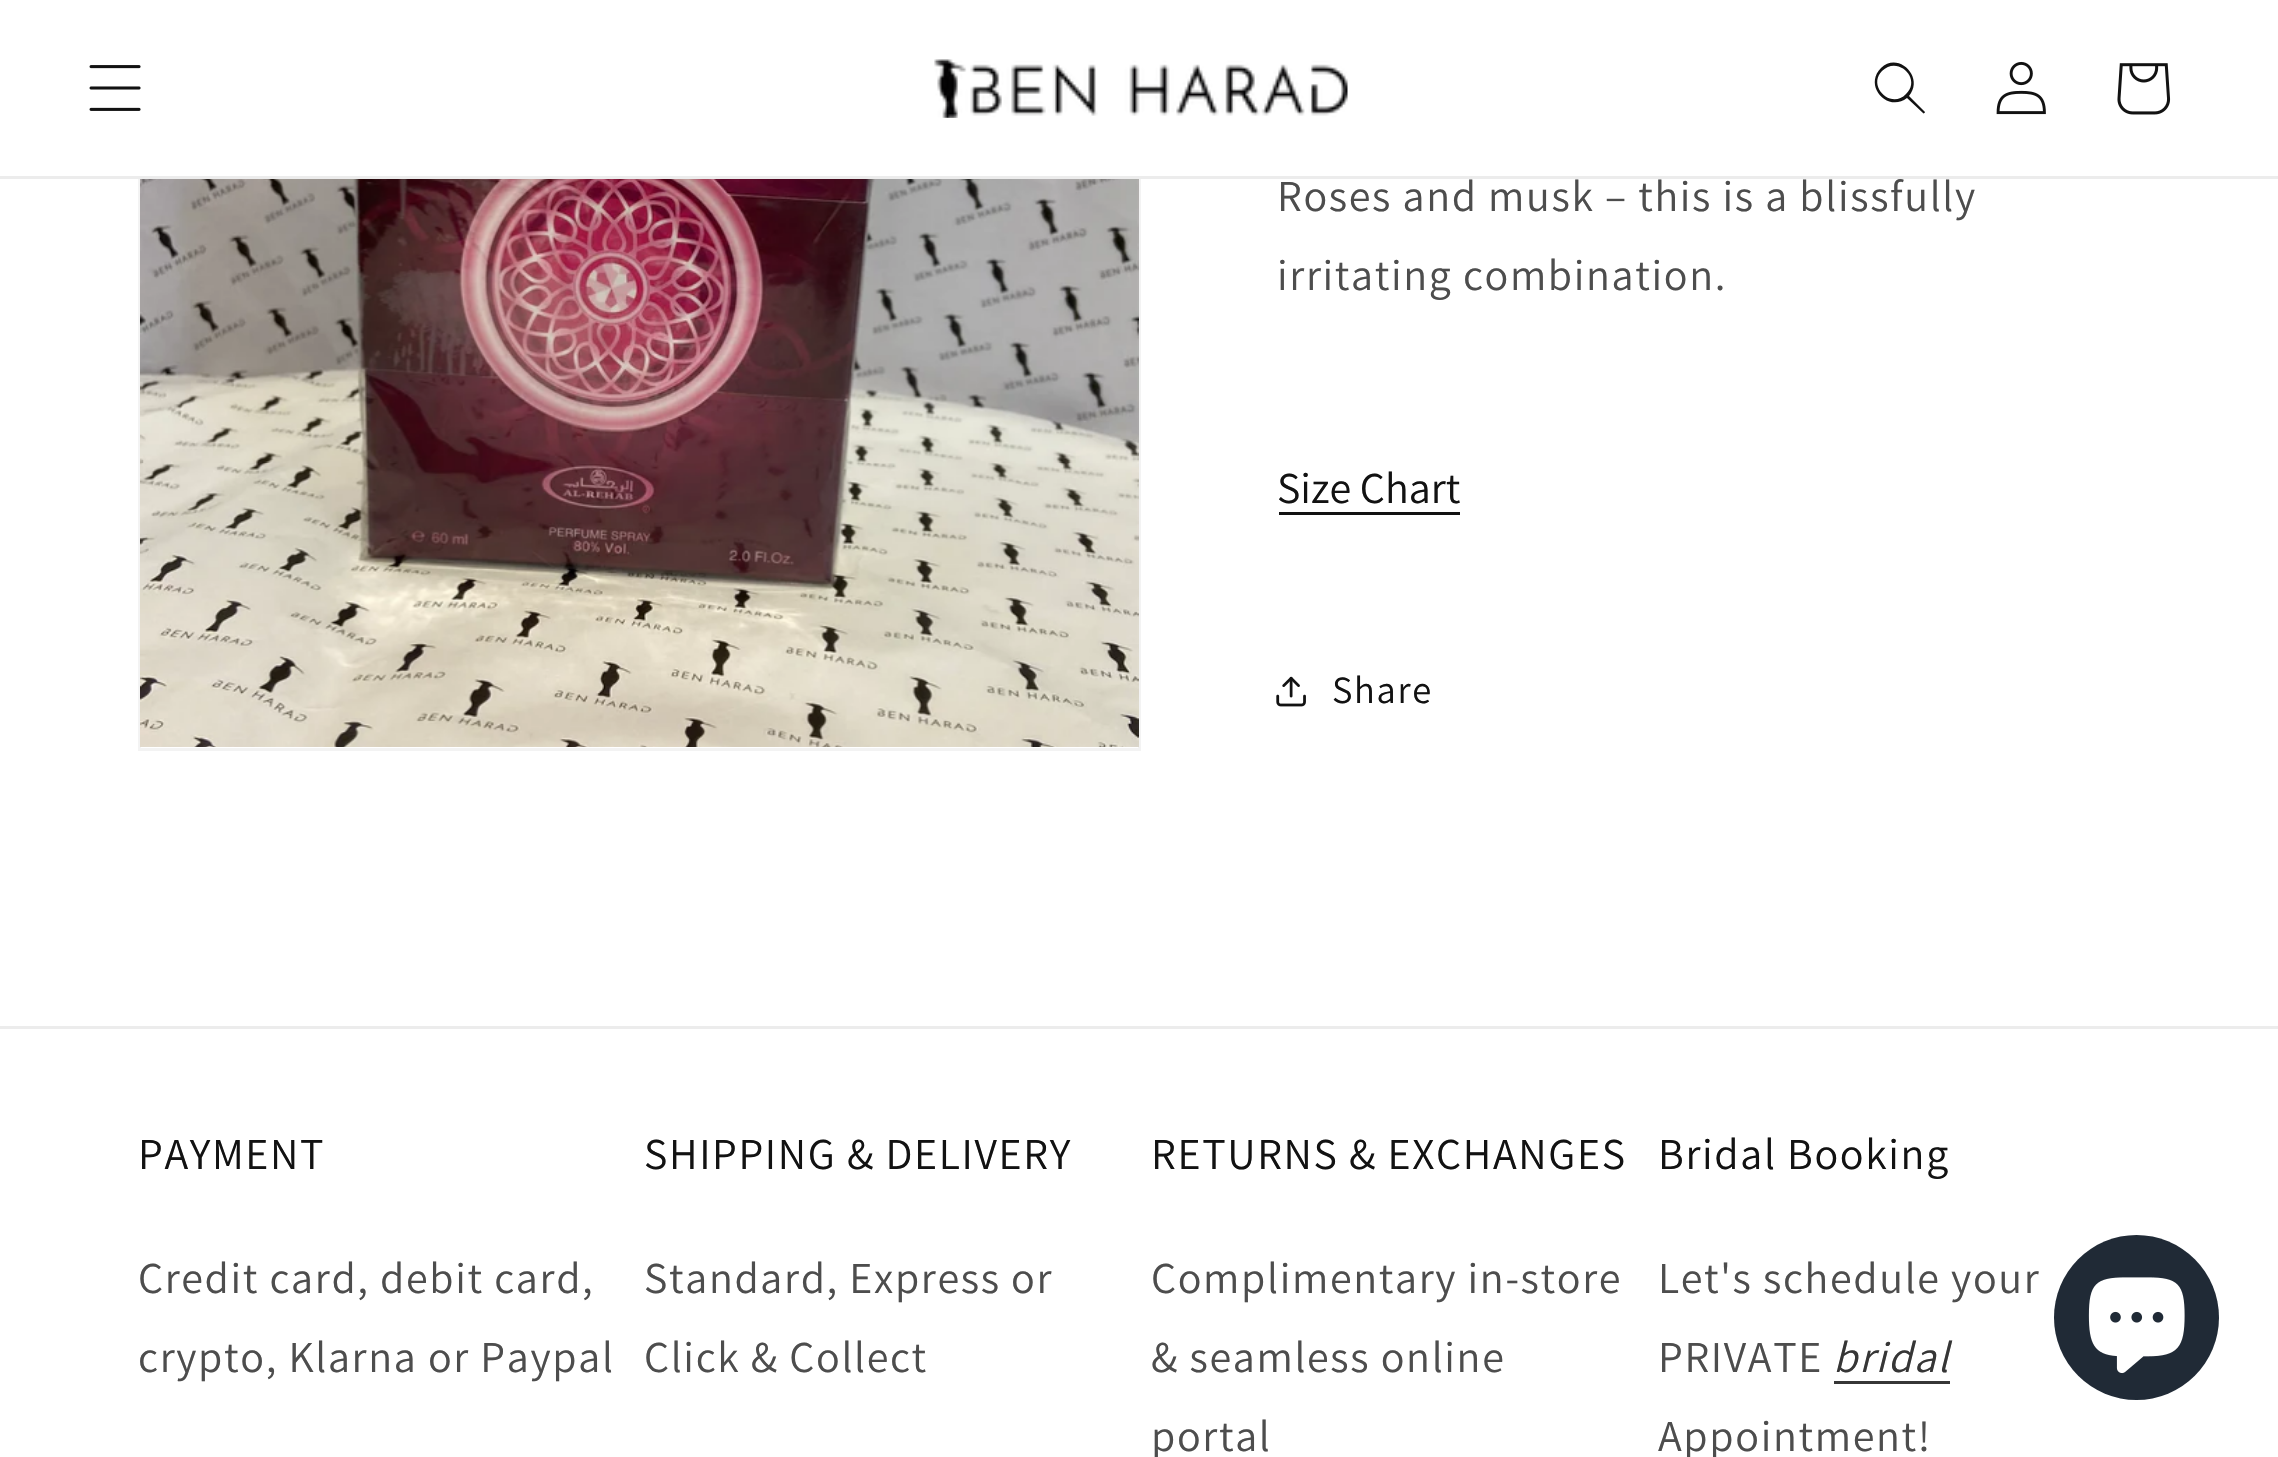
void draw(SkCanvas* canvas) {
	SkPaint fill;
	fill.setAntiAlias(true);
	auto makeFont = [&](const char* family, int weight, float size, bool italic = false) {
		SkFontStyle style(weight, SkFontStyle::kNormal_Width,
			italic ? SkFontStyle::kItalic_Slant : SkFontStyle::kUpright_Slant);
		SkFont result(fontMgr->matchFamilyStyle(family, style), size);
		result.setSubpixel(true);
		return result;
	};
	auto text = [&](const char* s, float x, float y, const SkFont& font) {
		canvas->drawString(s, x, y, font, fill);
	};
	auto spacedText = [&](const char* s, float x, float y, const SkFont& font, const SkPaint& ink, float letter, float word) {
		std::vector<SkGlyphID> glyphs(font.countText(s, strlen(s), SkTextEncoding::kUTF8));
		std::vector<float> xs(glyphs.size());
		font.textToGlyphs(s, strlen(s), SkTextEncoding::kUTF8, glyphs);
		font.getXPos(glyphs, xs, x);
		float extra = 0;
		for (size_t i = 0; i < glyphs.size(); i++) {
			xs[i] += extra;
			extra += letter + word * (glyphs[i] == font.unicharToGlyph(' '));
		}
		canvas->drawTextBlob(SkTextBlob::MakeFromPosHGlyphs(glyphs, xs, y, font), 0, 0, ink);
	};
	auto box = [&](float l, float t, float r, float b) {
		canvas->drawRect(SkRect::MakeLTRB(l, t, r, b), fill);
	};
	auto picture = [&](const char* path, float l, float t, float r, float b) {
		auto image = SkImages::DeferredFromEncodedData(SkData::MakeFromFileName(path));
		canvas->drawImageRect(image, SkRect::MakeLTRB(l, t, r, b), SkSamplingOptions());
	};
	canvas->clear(0xFFFFFFFF);
	fill.setStyle(SkPaint::kStroke_Style);
	fill.setStrokeWidth(3);
	fill.setColor(0xFFF3F3F3);
	canvas->drawRect(SkRect::MakeLTRB(139.5f, -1.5f, 1139.5f, 749.5f), fill);
	fill.setStyle(SkPaint::kFill_Style);
	fill.setColor(0xFFFFFFFF);
	box(138, 0, 1141, 176);
	fill.setColor(0xFFECECEC);
	box(0, 176, 2278, 179);
	picture("image0.png", 89, 65, 141, 111);
	picture("image1.png", 934, 59, 1348, 118);
	fill.setColor(0xFF121212);
	canvas->drawPath(SkPathBuilder(SkPathFillType::kEvenOdd).moveTo(1906, 94).cubicTo(1891, 110, 1867, 86, 1882, 71).cubicTo(1898, 55, 1922, 79, 1906, 94).moveTo(1907, 98).cubicTo(1888, 113, 1863, 86, 1881, 68).cubicTo(1898, 51, 1925, 77, 1909, 96).lineTo(1925, 112).cubicTo(1925, 113, 1923, 114, 1923, 113).close().detach(), fill);
	picture("image2.png", 1996, 61, 2046, 115);
	picture("image3.png", 2117, 63, 2171, 115);
	picture("image4.png", 140, 179, 1139, 747);
	box(1279, 512, 1460, 515);
	picture("image5.png", 1276, 676, 1306, 707);
	fill.setColor(0xFFECECEC);
	box(0, 1026, 2278, 1029);
	fill.setColor(0xFF363636);
	box(1834, 1381, 1950, 1384);
	fill.setColor(0xFF202A36);
	canvas->drawCircle(2136.5f, 1317.5f, 82.5f, fill);
	picture("image6.png", 2088, 1277, 2185, 1374);
	auto font1 = makeFont("Assistant", 400, 44);
	fill.setColor(0xFF4D4D4D);
	spacedText("Roses and musk – this is a blissfully", 1277, 211, font1, fill, 1.65f, 0);
	spacedText("irritating combination.", 1277, 290, font1, fill, 1.65f, 0);
	fill.setColor(0xFF121212);
	text("Size Chart", 1277, 503, font1);
	auto font2 = makeFont("Assistant", 400, 38.5f);
	spacedText("Share", 1332, 703, font2, fill, 1.65f, 0);
	spacedText("PAYMENT", 138, 1169, font1, fill, 1.65f, 0);
	fill.setColor(0xFF4D4D4D);
	spacedText("Credit card, debit card,", 138, 1293, font1, fill, 1.65f, 0);
	spacedText("crypto, Klarna or Paypal", 138, 1372, font1, fill, 1.65f, 0);
	fill.setColor(0xFF121212);
	spacedText("SHIPPING & DELIVERY", 644, 1169, font1, fill, 1.65f, 0);
	fill.setColor(0xFF4D4D4D);
	spacedText("Standard, Express or", 644, 1293, font1, fill, 1.65f, 0);
	spacedText("Click & Collect", 644, 1372, font1, fill, 1.65f, 0);
	fill.setColor(0xFF121212);
	spacedText("RETURNS & EXCHANGES", 1151, 1169, font1, fill, 1.65f, 0);
	fill.setColor(0xFF4D4D4D);
	spacedText("Complimentary in-store", 1151, 1293, font1, fill, 1.65f, 0);
	spacedText("& seamless online", 1151, 1372, font1, fill, 1.65f, 0);
	spacedText("portal", 1151, 1451, font1, fill, 1.65f, 0);
	fill.setColor(0xFF121212);
	spacedText("Bridal Booking", 1658, 1169, font1, fill, 1.65f, 0);
	fill.setColor(0xFF4D4D4D);
	spacedText("Let's schedule your", 1658, 1293, font1, fill, 1.65f, 0);
	spacedText("PRIVATE", 1658, 1372, font1, fill, 1.65f, 0);
	auto font3 = makeFont("Assistant", 400, 44, true);
	fill.setColor(0xFF363636);
	spacedText("bridal", 1833, 1372, font3, fill, 1.65f, 0);
	fill.setColor(0xFF4D4D4D);
	spacedText("Appointment!", 1658, 1451, font1, fill, 1.65f, 0);
}
